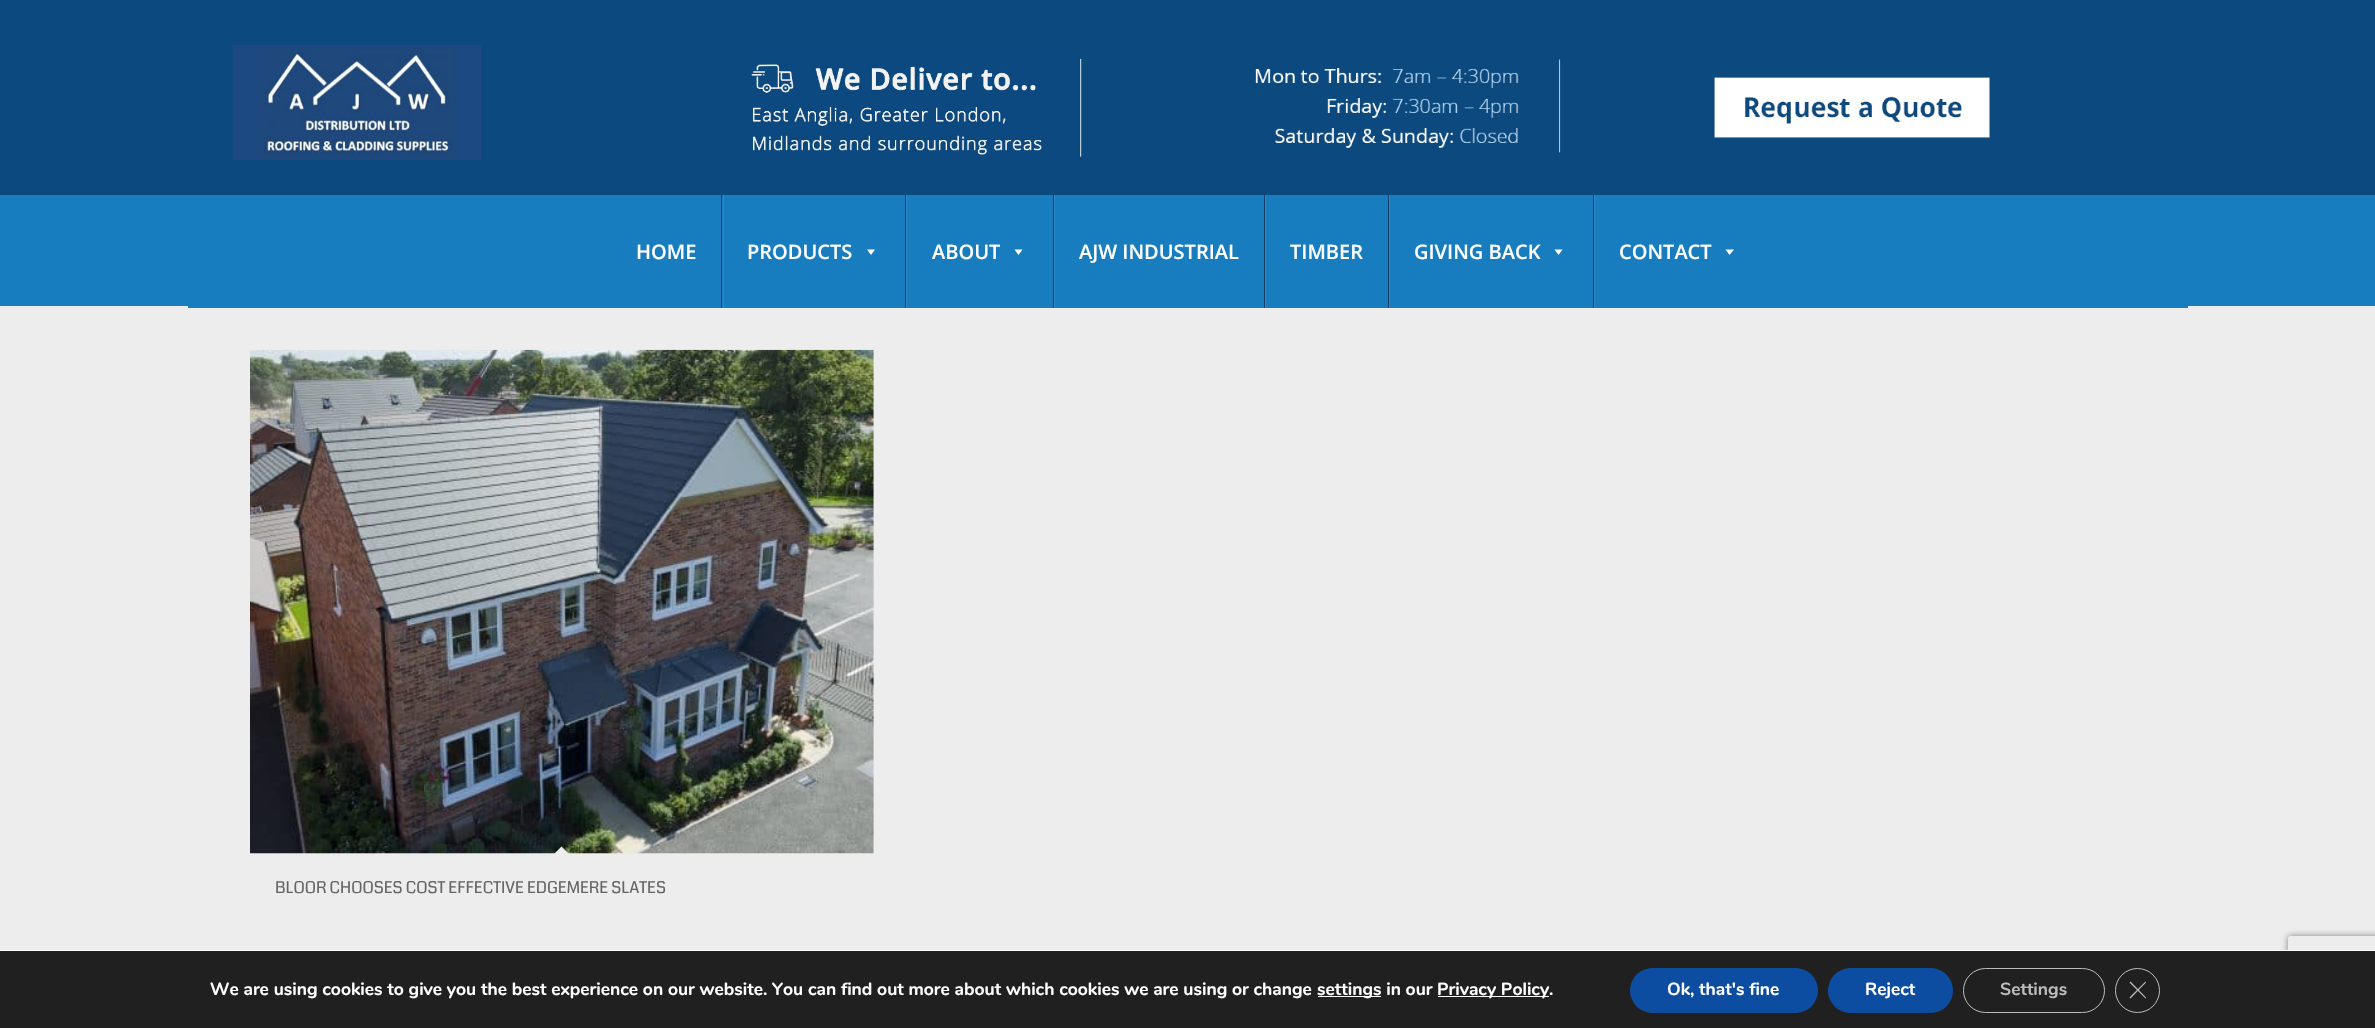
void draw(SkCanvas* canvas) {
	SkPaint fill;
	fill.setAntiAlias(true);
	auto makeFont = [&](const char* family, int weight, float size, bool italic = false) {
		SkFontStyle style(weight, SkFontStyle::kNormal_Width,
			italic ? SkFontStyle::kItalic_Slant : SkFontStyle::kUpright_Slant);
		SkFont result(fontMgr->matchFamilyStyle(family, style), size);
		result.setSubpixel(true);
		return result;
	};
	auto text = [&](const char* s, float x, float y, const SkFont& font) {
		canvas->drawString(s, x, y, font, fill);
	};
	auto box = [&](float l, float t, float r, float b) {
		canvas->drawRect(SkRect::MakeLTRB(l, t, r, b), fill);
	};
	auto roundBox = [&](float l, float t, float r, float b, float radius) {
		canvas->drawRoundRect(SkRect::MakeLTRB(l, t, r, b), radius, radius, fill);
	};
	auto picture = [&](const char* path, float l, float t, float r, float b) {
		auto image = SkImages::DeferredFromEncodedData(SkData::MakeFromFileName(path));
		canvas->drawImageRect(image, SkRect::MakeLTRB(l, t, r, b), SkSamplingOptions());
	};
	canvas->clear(0xFF0C497E);
	picture("image0.png", 232, 45, 481, 160);
	picture("image1.png", 751, 58, 1082, 158);
	picture("image2.png", 1255, 59, 1561, 153);
	picture("image3.png", 1714, 77, 1990, 138);
	fill.setColor(0xFF177DBE);
	box(0, 195, 2375, 306);
	fill.setColor(0xFFEDEDED);
	box(0, 306, 2375, 950);
	fill.setColor(0xFF177DBE);
	box(188, 306, 2188, 308);
	fill.setColor(0xFF2E8AC5);
	box(723, 195, 724, 308);
	fill.setColor(0xFF173F67);
	box(721, 195, 722, 308);
	fill.setColor(0xFFFFFFFF);
	canvas->drawPath(SkPathBuilder().moveTo(875, 249.5f).lineTo(871, 255).lineTo(867, 249.5f).close().detach(), fill);
	fill.setColor(0xFF2E8AC5);
	box(906, 195, 907, 308);
	fill.setColor(0xFF173F67);
	box(905, 195, 906, 308);
	fill.setColor(0xFFFFFFFF);
	canvas->drawPath(SkPathBuilder().moveTo(1022.5f, 249.5f).lineTo(1018.5f, 255).lineTo(1014.5f, 249.5f).close().detach(), fill);
	fill.setColor(0xFF2E8AC5);
	box(1054, 195, 1055, 308);
	fill.setColor(0xFF173F67);
	box(1053, 195, 1054, 308);
	fill.setColor(0xFF2E8AC5);
	box(1265, 195, 1266, 308);
	fill.setColor(0xFF173F67);
	box(1264, 195, 1265, 308);
	fill.setColor(0xFF2E8AC5);
	box(1389, 195, 1390, 308);
	fill.setColor(0xFF173F67);
	box(1388, 195, 1389, 308);
	fill.setColor(0xFFFFFFFF);
	canvas->drawPath(SkPathBuilder().moveTo(1562.5f, 249.5f).lineTo(1558.5f, 255).lineTo(1554.5f, 249.5f).close().detach(), fill);
	fill.setColor(0xFF2E8AC5);
	box(1594, 195, 1595, 308);
	fill.setColor(0xFF173F67);
	box(1593, 195, 1594, 308);
	fill.setColor(0xFFFFFFFF);
	canvas->drawPath(SkPathBuilder().moveTo(1734, 249.5f).lineTo(1729.5f, 255).lineTo(1725.5f, 249.5f).close().detach(), fill);
	picture("image4.png", 250, 349, 874, 854);
	fill.setColor(0xFFEDEDED);
	canvas->drawPath(SkPathBuilder().moveTo(561.5f, 846.5f).lineTo(570.5f, 855.5f).lineTo(561.5f, 864).lineTo(552.5f, 855.5f).close().detach(), fill);
	canvas->save();
	canvas->clipPath(SkPathBuilder(SkPathFillType::kEvenOdd).moveTo(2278, 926).lineTo(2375, 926).lineTo(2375, 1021).lineTo(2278, 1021).close().moveTo(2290.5f, 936).lineTo(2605.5f, 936).cubicTo(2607, 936, 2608, 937, 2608, 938.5f).lineTo(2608, 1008.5f).cubicTo(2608, 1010, 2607, 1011, 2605.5f, 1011).lineTo(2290.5f, 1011).cubicTo(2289, 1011, 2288, 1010, 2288, 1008.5f).lineTo(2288, 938.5f).cubicTo(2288, 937, 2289, 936, 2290.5f, 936).close().detach(), true);
	fill.setColor(0xFF808080);
	fill.setMaskFilter(SkMaskFilter::MakeBlur(kNormal_SkBlurStyle, 3));
	canvas->drawRoundRect(SkRect::MakeLTRB(2288, 936, 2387, 1011), 2.5f, 2.5f, fill);
	fill.setMaskFilter(nullptr);
	canvas->restore();
	fill.setColor(0xFF202020);
	box(0, 951, 2375, 1028);
	fill.setColor(0xFFFFFFFF);
	box(0, 950, 2375, 951);
	box(1318, 996, 1381, 997);
	box(1438, 996, 1549, 997);
	fill.setColor(0xFF0C4DA2);
	roundBox(1630, 968, 1818, 1013, 22.5f);
	roundBox(1828, 968, 1953, 1013, 22.5f);
	fill.setStyle(SkPaint::kStroke_Style);
	fill.setStrokeWidth(1);
	fill.setColor(0xFFBCBCBC);
	canvas->drawRoundRect(SkRect::MakeLTRB(1963.5f, 968.5f, 2104.5f, 1012.5f), 22, 22, fill);
	canvas->drawCircle(2137.5f, 990.5f, 22, fill);
	fill.setStyle(SkPaint::kFill_Style);
	canvas->drawPath(SkPathBuilder().moveTo(2145.5f, 981.5f).lineTo(2146, 982.5f).lineTo(2130.5f, 998.5f).lineTo(2129.5f, 997.5f).close().detach(), fill);
	canvas->drawPath(SkPathBuilder().moveTo(2129.5f, 982.5f).lineTo(2130.5f, 981.5f).lineTo(2146, 997.5f).lineTo(2145.5f, 998.5f).close().detach(), fill);
	auto font1 = makeFont("Open Sans", 600, 20);
	fill.setColor(0xFFFFFFFF);
	text("HOME", 636, 259, font1);
	text("PRODUCTS", 747, 259, font1);
	text("ABOUT", 932, 259, font1);
	text("AJW INDUSTRIAL", 1079, 259, font1);
	text("TIMBER", 1290, 259, font1);
	text("GIVING BACK", 1414, 259, font1);
	text("CONTACT", 1619, 259, font1);
	auto font2 = makeFont("Coda", 400, 16.25f);
	fill.setColor(0xFF666666);
	text("BLOOR CHOOSES COST EFFECTIVE EDGEMERE SLATES", 275, 893, font2);
	auto font3 = makeFont("Nunito", 700, 17.5f);
	fill.setColor(0xFFFFFFFF);
	text("We are using cookies to give you the best experience on our website. You can find out more about which cookies we are using or change", 210, 995, font3);
	text("settings in our", 1317, 995, font3);
	text("Privacy Policy.", 1437, 995, font3);
	text("Ok, that's fine", 1667, 995, font3);
	text("Reject", 1865, 995, font3);
	fill.setColor(0xFFBCBCBC);
	text("Settings", 2000, 995, font3);
}
